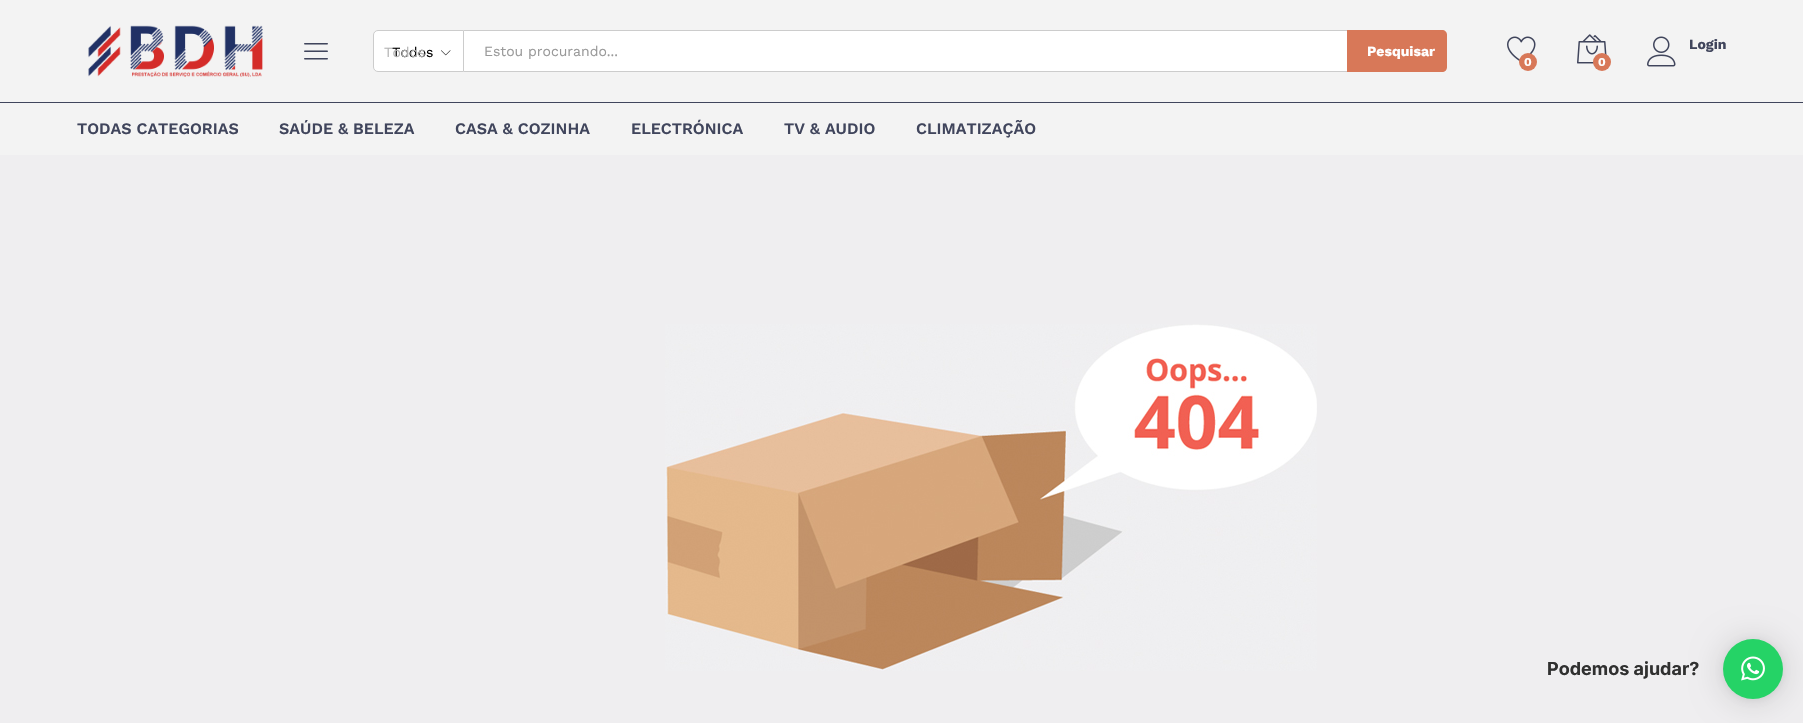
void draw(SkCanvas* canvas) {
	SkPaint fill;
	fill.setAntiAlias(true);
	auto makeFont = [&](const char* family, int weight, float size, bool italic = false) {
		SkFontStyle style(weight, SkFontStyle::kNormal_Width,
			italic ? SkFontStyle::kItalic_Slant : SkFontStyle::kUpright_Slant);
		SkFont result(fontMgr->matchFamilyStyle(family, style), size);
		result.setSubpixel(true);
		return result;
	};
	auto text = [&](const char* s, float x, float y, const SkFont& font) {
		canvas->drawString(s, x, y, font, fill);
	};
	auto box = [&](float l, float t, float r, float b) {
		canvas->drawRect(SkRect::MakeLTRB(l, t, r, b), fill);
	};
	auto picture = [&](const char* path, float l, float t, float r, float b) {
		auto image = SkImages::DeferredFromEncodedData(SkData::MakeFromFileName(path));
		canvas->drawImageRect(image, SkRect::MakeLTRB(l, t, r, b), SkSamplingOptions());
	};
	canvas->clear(0xFFEFEEF0);
	fill.setColor(0xFFF3F3F3);
	box(0, 0, 1803, 155);
	picture("image0.png", 88, 25, 263, 77);
	picture("image1.png", 304, 43, 328, 60);
	fill.setColor(0xFFFFFFFF);
	canvas->drawPath(SkPathBuilder().moveTo(378, 30.5f).lineTo(463.5f, 30.5f).lineTo(463.5f, 71.5f).lineTo(378, 71.5f).cubicTo(375.5f, 71.5f, 373.5f, 69.5f, 373.5f, 67).lineTo(373.5f, 35).cubicTo(373.5f, 32.5f, 375.5f, 30.5f, 378, 30.5f).close().detach(), fill);
	fill.setStyle(SkPaint::kStroke_Style);
	fill.setStrokeWidth(1);
	fill.setColor(0xFFCCCCCC);
	canvas->drawPath(SkPathBuilder().moveTo(378, 30.5f).lineTo(463.5f, 30.5f).lineTo(463.5f, 71.5f).lineTo(378, 71.5f).cubicTo(375.5f, 71.5f, 373.5f, 69.5f, 373.5f, 67).lineTo(373.5f, 35).cubicTo(373.5f, 32.5f, 375.5f, 30.5f, 378, 30.5f).close().detach(), fill);
	picture("image2.png", 441, 50, 451, 56);
	fill.setStyle(SkPaint::kFill_Style);
	fill.setColor(0xFFFFFFFF);
	box(464, 31, 1347, 71);
	fill.setColor(0xFFCCCCCC);
	box(464, 30, 1347, 31);
	box(464, 71, 1347, 72);
	fill.setColor(0xFFD87858);
	canvas->drawPath(SkPathBuilder().moveTo(1347, 30).lineTo(1442, 30).cubicTo(1445, 30, 1447, 32, 1447, 35).lineTo(1447, 67).cubicTo(1447, 70, 1445, 72, 1442, 72).lineTo(1347, 72).close().detach(), fill);
	picture("image3.png", 1647, 36, 1676, 67);
	picture("image4.png", 1507, 36, 1536, 62);
	canvas->drawCircle(1528, 62, 9, fill);
	picture("image5.png", 1577, 34, 1607, 64);
	canvas->drawCircle(1602, 62, 9, fill);
	fill.setColor(0xFF40455C);
	box(0, 102, 1803, 103);
	picture("image6.png", 665, 324, 1317, 671);
	fill.setColor(0x29000000);
	fill.setMaskFilter(SkMaskFilter::MakeBlur(kNormal_SkBlurStyle, 16));
	canvas->drawRoundRect(SkRect::MakeLTRB(1723, 641, 1783, 701), 30, 30, fill);
	fill.setMaskFilter(nullptr);
	fill.setColor(0x0F000000);
	fill.setMaskFilter(SkMaskFilter::MakeBlur(kNormal_SkBlurStyle, 3));
	canvas->drawRoundRect(SkRect::MakeLTRB(1723, 640, 1783, 700), 30, 30, fill);
	fill.setMaskFilter(nullptr);
	fill.setColor(0xFF25D366);
	canvas->drawCircle(1753, 669, 30, fill);
	picture("image7.png", 1741, 656, 1765, 681);
	auto font1 = makeFont("Work Sans", 400, 14);
	fill.setColor(0xFF000000);
	text("Todos", 392, 57, font1);
	fill.setColor(0xFFB4B4B4);
	text("Todos", 384, 57, font1);
	fill.setColor(0xFF999999);
	text("Estou procurando...", 484, 56, font1);
	auto font2 = makeFont("Work Sans", 700, 14);
	fill.setColor(0xFFFFFFFF);
	text("Pesquisar", 1367, 56, font2);
	fill.setColor(0xFF40455C);
	text("Login", 1689, 49, font2);
	auto font3 = makeFont("Work Sans", 700, 12);
	fill.setColor(0xFFFFFFFF);
	text("0", 1524, 66, font3);
	text("0", 1598, 66, font3);
	auto font4 = makeFont("Work Sans", 600, 16);
	fill.setColor(0xFF40455C);
	text("TODAS CATEGORIAS", 77, 134, font4);
	text("SAÚDE & BELEZA", 279, 134, font4);
	text("CASA & COZINHA", 455, 134, font4);
	text("ELECTRÓNICA", 631, 134, font4);
	text("TV & AUDIO", 784, 134, font4);
	text("CLIMATIZAÇÃO", 916, 134, font4);
	auto font5 = makeFont("Inter", 700, 18);
	fill.setColor(0xFF303030);
	text("Podemos ajudar?", 1547, 675, font5);
}
